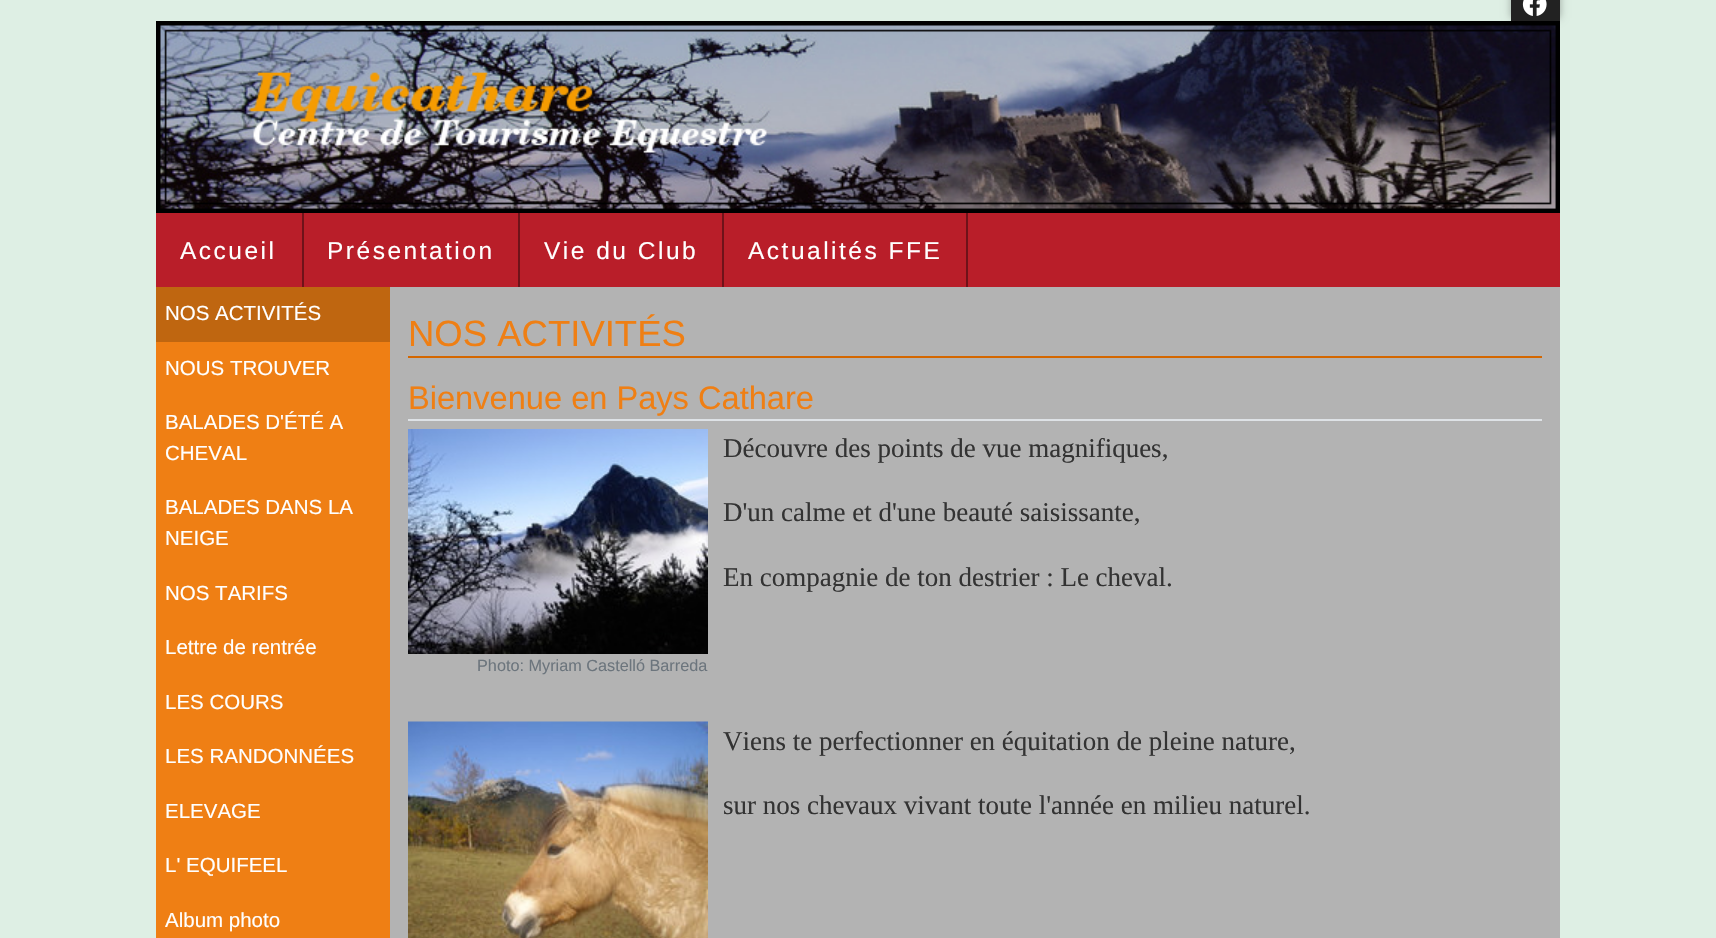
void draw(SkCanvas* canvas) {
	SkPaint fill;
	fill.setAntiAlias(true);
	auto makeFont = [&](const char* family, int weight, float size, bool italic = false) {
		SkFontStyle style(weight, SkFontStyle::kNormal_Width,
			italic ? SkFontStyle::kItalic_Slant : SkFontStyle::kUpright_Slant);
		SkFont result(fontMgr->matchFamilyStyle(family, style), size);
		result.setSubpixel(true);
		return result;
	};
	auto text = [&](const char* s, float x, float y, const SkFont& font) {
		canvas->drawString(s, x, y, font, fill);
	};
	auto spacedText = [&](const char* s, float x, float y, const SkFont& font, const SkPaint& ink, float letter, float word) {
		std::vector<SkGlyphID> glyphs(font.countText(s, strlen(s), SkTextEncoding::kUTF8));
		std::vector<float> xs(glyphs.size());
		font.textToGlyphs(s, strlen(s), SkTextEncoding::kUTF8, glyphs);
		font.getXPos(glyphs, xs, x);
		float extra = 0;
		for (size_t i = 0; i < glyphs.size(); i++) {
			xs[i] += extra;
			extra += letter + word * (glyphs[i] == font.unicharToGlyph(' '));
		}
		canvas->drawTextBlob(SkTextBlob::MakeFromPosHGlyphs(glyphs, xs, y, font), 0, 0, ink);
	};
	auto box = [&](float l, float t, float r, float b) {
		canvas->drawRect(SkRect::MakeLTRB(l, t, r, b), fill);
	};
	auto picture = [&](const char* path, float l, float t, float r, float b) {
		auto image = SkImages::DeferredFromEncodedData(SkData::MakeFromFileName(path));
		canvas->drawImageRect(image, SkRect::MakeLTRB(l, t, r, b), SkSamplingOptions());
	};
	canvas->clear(0xFFDEEFE4);
	fill.setColor(0x4D000000);
	fill.setMaskFilter(SkMaskFilter::MakeBlur(kNormal_SkBlurStyle, 4));
	canvas->drawRect(SkRect::MakeLTRB(1511, -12, 1560, 18), fill);
	fill.setMaskFilter(nullptr);
	fill.setColor(0xFF222222);
	box(1511, 0, 1560, 21);
	picture("image0.png", 1522, 0, 1547, 16);
	picture("image1.png", 156, 21, 1560, 213);
	fill.setColor(0xFFB91E29);
	box(156, 213, 1560, 287);
	fill.setColor(0xFF6F1219);
	box(302, 213, 304, 287);
	box(518, 213, 520, 287);
	box(722, 213, 724, 287);
	box(966, 213, 968, 287);
	fill.setColor(0xFFEF7F14);
	box(156, 342, 390, 938);
	fill.setColor(0xFFBF6610);
	box(156, 287, 390, 342);
	fill.setColor(0xFFB3B3B3);
	box(390, 287, 1560, 938);
	fill.setColor(0xFFD46700);
	box(408, 356, 1542, 358);
	fill.setColor(0xFFDEE2E6);
	box(408, 419, 1542, 421);
	picture("image2.png", 408, 429, 708, 654);
	picture("image3.png", 408, 721, 708, 938);
	auto font1 = makeFont("Liberation Sans", 400, 24.5f);
	fill.setColor(0xFFFFFFFF);
	spacedText("Accueil", 180, 259, font1, fill, 2.5f, 0);
	spacedText("Présentation", 327, 259, font1, fill, 2.5f, 0);
	spacedText("Vie du Club", 544, 259, font1, fill, 2.5f, 0);
	spacedText("Actualités FFE", 748, 259, font1, fill, 2.5f, 0);
	auto font2 = makeFont("Liberation Sans", 400, 20.5f);
	text("NOS ACTIVITÉS", 165, 320, font2);
	text("NOUS TROUVER", 165, 375, font2);
	text("BALADES D'ÉTÉ A", 165, 429, font2);
	text("CHEVAL", 165, 460, font2);
	text("BALADES DANS LA", 165, 514, font2);
	text("NEIGE", 165, 545, font2);
	text("NOS TARIFS", 165, 600, font2);
	text("Lettre de rentrée", 165, 654, font2);
	text("LES COURS", 165, 709, font2);
	text("LES RANDONNÉES", 165, 763, font2);
	text("ELEVAGE", 165, 818, font2);
	text("L' EQUIFEEL", 165, 872, font2);
	text("Album photo", 165, 927, font2);
	auto font3 = makeFont("Liberation Sans", 400, 36.5f);
	fill.setColor(0xFFEF7F14);
	text("NOS ACTIVITÉS", 408, 346, font3);
	auto font4 = makeFont("Liberation Sans", 400, 32.6f);
	text("Bienvenue en Pays Cathare", 408, 409, font4);
	auto font5 = makeFont("Liberation Serif", 400, 27);
	fill.setColor(0xFF333333);
	text("Découvre des points de vue magnifiques,", 723, 457, font5);
	text("D'un calme et d'une beauté saisissante,", 723, 521, font5);
	text("En compagnie de ton destrier : Le cheval.", 723, 586, font5);
	auto font6 = makeFont("Liberation Sans", 400, 16.25f);
	fill.setColor(0xFF6C757D);
	text("Photo: Myriam Castelló Barreda", 477, 671, font6);
	fill.setColor(0xFF333333);
	text("Viens te perfectionner en équitation de pleine nature,", 723, 750, font5);
	text("sur nos chevaux vivant toute l'année en milieu naturel.", 723, 814, font5);
}
